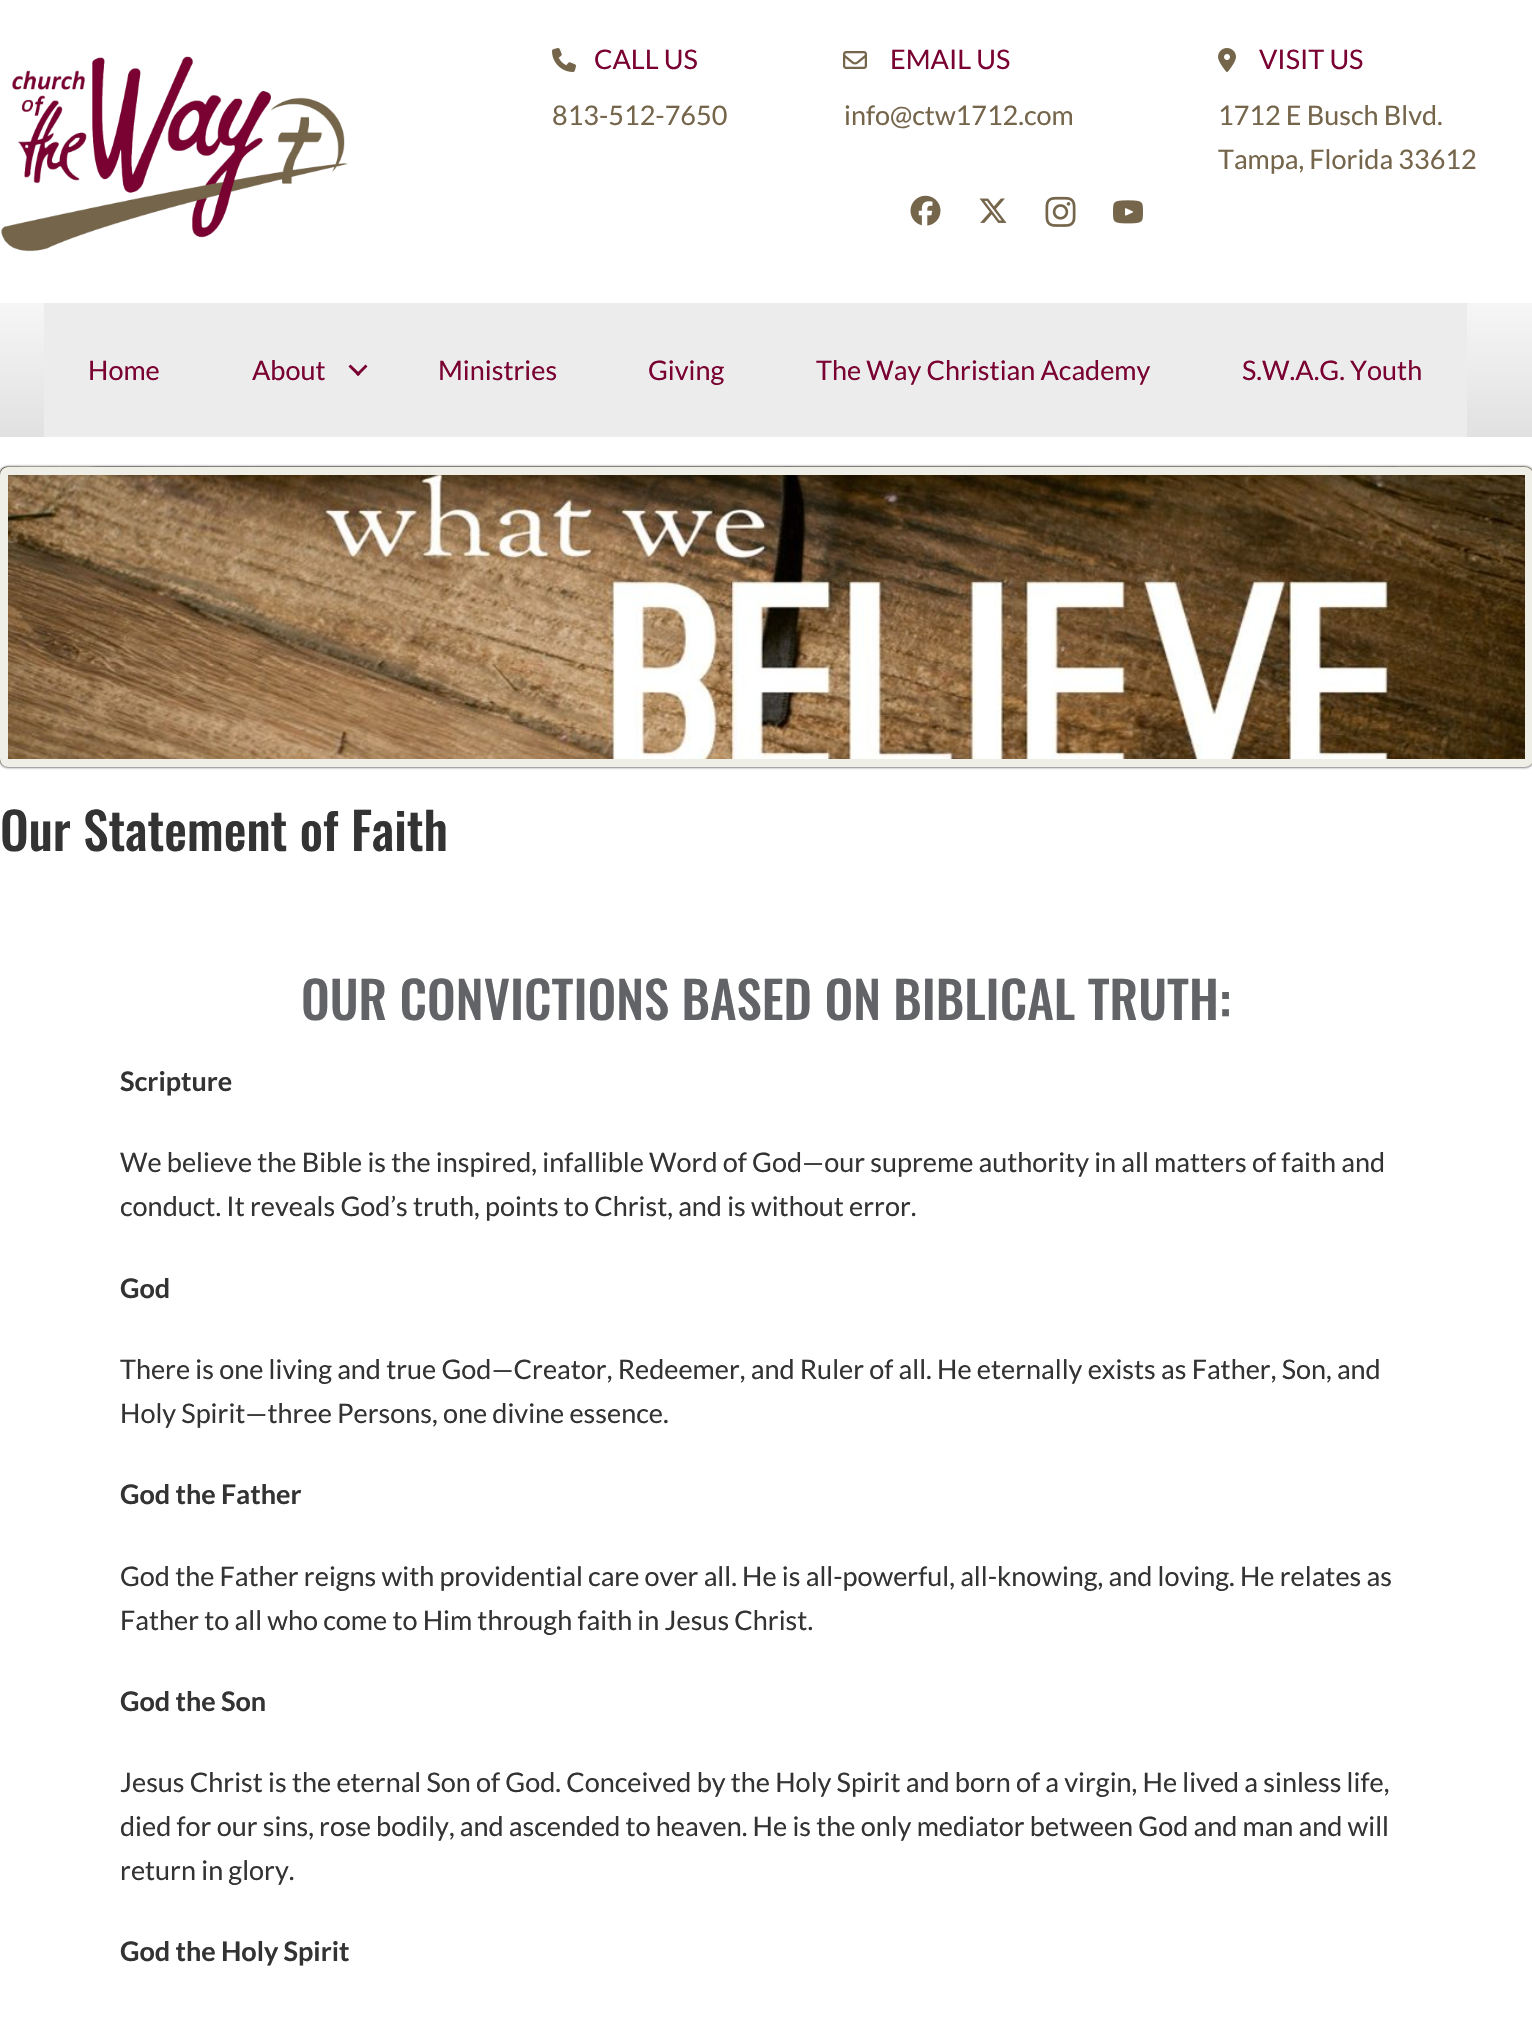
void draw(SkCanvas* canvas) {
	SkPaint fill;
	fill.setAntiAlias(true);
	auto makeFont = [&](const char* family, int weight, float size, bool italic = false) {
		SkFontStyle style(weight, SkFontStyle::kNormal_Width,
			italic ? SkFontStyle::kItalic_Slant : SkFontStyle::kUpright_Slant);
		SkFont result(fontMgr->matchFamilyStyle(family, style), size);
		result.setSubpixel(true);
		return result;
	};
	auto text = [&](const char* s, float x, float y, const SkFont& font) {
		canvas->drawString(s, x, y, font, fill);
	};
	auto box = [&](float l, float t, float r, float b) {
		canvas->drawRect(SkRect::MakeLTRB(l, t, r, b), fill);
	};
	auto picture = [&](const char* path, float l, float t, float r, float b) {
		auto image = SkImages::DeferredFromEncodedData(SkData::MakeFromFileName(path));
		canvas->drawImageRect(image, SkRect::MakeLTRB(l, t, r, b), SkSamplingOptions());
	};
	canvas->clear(0xFFFFFFFF);
	picture("image0.png", 1, 56, 348, 252);
	picture("image1.png", 552, 48, 576, 72);
	picture("image2.png", 843, 51, 867, 69);
	picture("image3.png", 1218, 48, 1236, 72);
	picture("image4.png", 910, 195, 941, 226);
	picture("image5.png", 979, 198, 1007, 223);
	picture("image6.png", 1045, 196, 1076, 227);
	picture("image7.png", 1113, 200, 1143, 224);
	{
		const SkColor colors[] = {0xFFF6F6F6, 0xFFE1E1E1};
		const float stops[] = {0, 1};
		const SkPoint ends[] = {{767, 303}, {767, 437}};
		fill.setShader(SkGradientShader::MakeLinear(ends, colors, stops, 2, SkTileMode::kClamp));
		fill.setAlpha(255);
	}
	box(0, 303, 1532, 437);
	fill.setShader(nullptr);
	fill.setColor(0xFFECECEC);
	box(44, 303, 1467, 437);
	fill.setColor(0xFF7A0232);
	canvas->drawPath(SkPathBuilder().moveTo(365.5f, 364.5f).lineTo(367.5f, 366.5f).lineTo(358, 376).lineTo(356, 374).close().detach(), fill);
	canvas->drawPath(SkPathBuilder().moveTo(350.5f, 364.5f).lineTo(360.5f, 374).lineTo(358, 376).lineTo(348.5f, 366.5f).close().detach(), fill);
	fill.setColor(0xFF000000);
	fill.setMaskFilter(SkMaskFilter::MakeBlur(kNormal_SkBlurStyle, 1.5f));
	canvas->drawRoundRect(SkRect::MakeLTRB(0, 467, 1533, 767), 8, 8, fill);
	fill.setMaskFilter(nullptr);
	picture("image8.png", 0, 466, 1532, 767);
	fill.setStyle(SkPaint::kStroke_Style);
	fill.setStrokeWidth(8);
	fill.setColor(0xFFEFEEE7);
	canvas->drawRoundRect(SkRect::MakeLTRB(4, 471, 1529, 763), 4, 4, fill);
	auto font1 = makeFont("Lato", 400, 27);
	fill.setStyle(SkPaint::kFill_Style);
	fill.setColor(0xFF7A0232);
	text("CALL US", 594, 69, font1);
	fill.setColor(0xFF75654B);
	text("813-512-7650", 552, 125, font1);
	fill.setColor(0xFF7A0232);
	text("EMAIL US", 890, 69, font1);
	fill.setColor(0xFF75654B);
	text("info@ctw1712.com", 844, 125, font1);
	fill.setColor(0xFF7A0232);
	text("VISIT US", 1259, 69, font1);
	fill.setColor(0xFF75654B);
	text("1712 E Busch Blvd.", 1218, 125, font1);
	text("Tampa, Florida 33612", 1218, 169, font1);
	fill.setColor(0xFF7A0232);
	text("Home", 88, 380, font1);
	text("About", 252, 380, font1);
	text("Ministries", 438, 380, font1);
	text("Giving", 648, 380, font1);
	text("The Way Christian Academy", 816, 380, font1);
	text("S.W.A.G. Youth", 1242, 380, font1);
	auto font2 = makeFont("Oswald", 500, 51);
	fill.setColor(0xFF333333);
	text("Our Statement of Faith", 0, 851, font2);
	fill.setColor(0xFF616366);
	text("OUR CONVICTIONS BASED ON BIBLICAL TRUTH:", 301, 1020, font2);
	auto font3 = makeFont("Lato", 700, 27);
	fill.setColor(0xFF333333);
	text("Scripture", 120, 1091, font3);
	text("We believe the Bible is the inspired, infallible Word of God—our supreme authority in all matters of faith and", 120, 1172, font1);
	text("conduct. It reveals God’s truth, points to Christ, and is without error.", 120, 1216, font1);
	text("God", 120, 1298, font3);
	text("There is one living and true God—Creator, Redeemer, and Ruler of all. He eternally exists as Father, Son, and", 120, 1379, font1);
	text("Holy Spirit—three Persons, one divine essence.", 120, 1423, font1);
	text("God the Father", 120, 1504, font3);
	text("God the Father reigns with providential care over all. He is all-powerful, all-knowing, and loving. He relates as", 120, 1586, font1);
	text("Father to all who come to Him through faith in Jesus Christ.", 120, 1630, font1);
	text("God the Son", 120, 1711, font3);
	text("Jesus Christ is the eternal Son of God. Conceived by the Holy Spirit and born of a virgin, He lived a sinless life,", 120, 1792, font1);
	text("died for our sins, rose bodily, and ascended to heaven. He is the only mediator between God and man and will", 120, 1836, font1);
	text("return in glory.", 120, 1880, font1);
	text("God the Holy Spirit", 120, 1961, font3);
}
